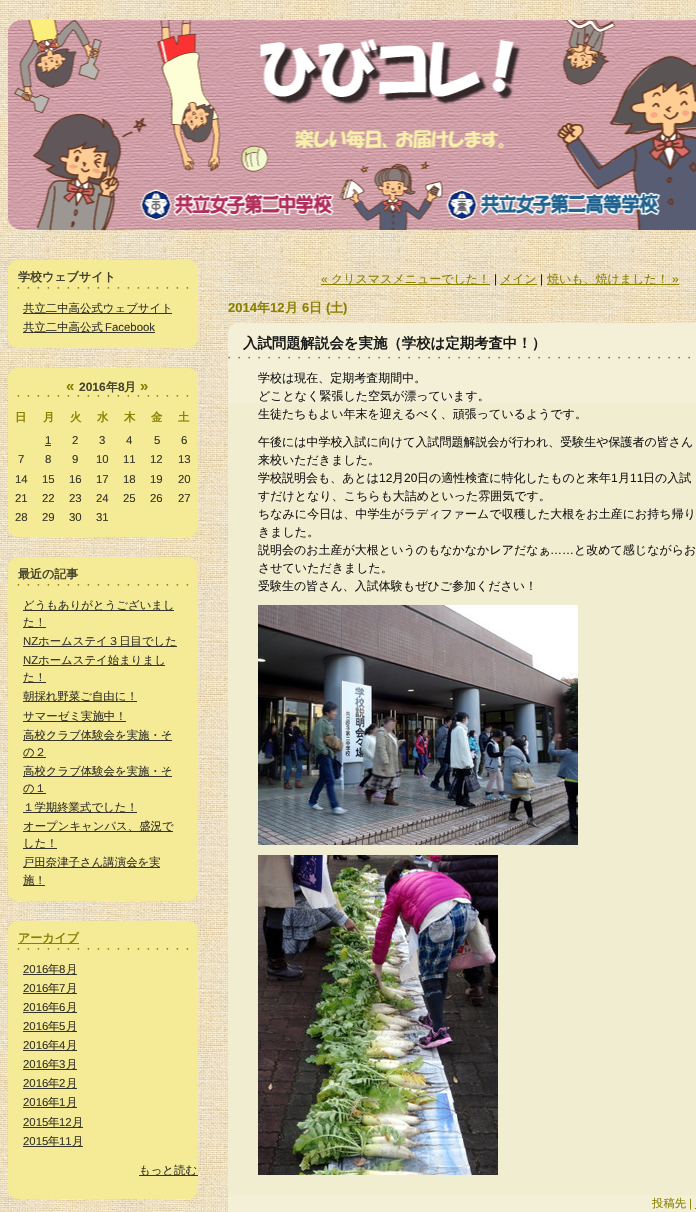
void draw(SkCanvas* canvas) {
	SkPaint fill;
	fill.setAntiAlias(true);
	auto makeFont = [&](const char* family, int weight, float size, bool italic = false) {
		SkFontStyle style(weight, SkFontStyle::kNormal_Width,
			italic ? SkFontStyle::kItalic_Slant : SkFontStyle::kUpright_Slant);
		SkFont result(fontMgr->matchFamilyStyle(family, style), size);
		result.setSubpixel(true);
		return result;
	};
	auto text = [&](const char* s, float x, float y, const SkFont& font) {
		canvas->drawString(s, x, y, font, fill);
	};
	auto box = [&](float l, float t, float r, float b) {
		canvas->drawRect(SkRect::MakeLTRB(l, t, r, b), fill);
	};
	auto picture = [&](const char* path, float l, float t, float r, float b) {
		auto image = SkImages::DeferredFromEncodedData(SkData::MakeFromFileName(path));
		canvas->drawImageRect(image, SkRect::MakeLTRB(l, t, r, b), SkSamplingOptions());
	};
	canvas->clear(0xFFFFFFFF);
	picture("image0.png", 0, 0, 696, 1212);
	picture("image1.png", 8, 20, 696, 230);
	fill.setColor(0xFFF5EA95);
	box(8, 289, 198, 339);
	picture("image2.png", 8, 339, 198, 348);
	picture("image3.png", 8, 260, 198, 289);
	fill.setColor(0xFF353429);
	box(23, 313, 172, 314);
	box(23, 332, 155, 333);
	fill.setColor(0xFFF5EA95);
	box(8, 397, 198, 528);
	picture("image2.png", 8, 528, 198, 537);
	picture("image3.png", 8, 368, 198, 397);
	fill.setColor(0xFF353429);
	box(45, 445, 51, 446);
	fill.setColor(0xFFF5EA95);
	box(8, 586, 198, 892);
	picture("image2.png", 8, 892, 198, 901);
	picture("image3.png", 8, 557, 198, 586);
	fill.setColor(0xFF353429);
	box(23, 610, 174, 611);
	box(23, 627, 46, 628);
	box(23, 646, 177, 647);
	box(23, 665, 165, 666);
	box(23, 682, 46, 683);
	box(23, 701, 137, 702);
	box(23, 721, 126, 722);
	box(23, 740, 172, 741);
	box(23, 757, 46, 758);
	box(23, 776, 172, 777);
	box(23, 793, 46, 794);
	box(23, 812, 137, 813);
	box(23, 831, 173, 832);
	box(23, 848, 57, 849);
	box(23, 867, 160, 868);
	box(23, 885, 45, 886);
	fill.setColor(0xFFF5EA95);
	box(8, 950, 198, 1190);
	picture("image2.png", 8, 1190, 198, 1199);
	picture("image3.png", 8, 921, 198, 950);
	fill.setColor(0xFF8A8000);
	box(18, 943, 79, 944);
	fill.setColor(0xFF353429);
	box(23, 974, 77, 975);
	box(23, 993, 77, 994);
	box(23, 1012, 77, 1013);
	box(23, 1031, 77, 1032);
	box(23, 1050, 77, 1051);
	box(23, 1069, 77, 1070);
	box(23, 1088, 77, 1089);
	box(23, 1107, 77, 1108);
	box(23, 1127, 83, 1128);
	box(23, 1146, 83, 1147);
	box(139, 1175, 198, 1176);
	fill.setColor(0xFF8A8000);
	box(321, 284, 490, 285);
	box(500, 284, 537, 285);
	box(547, 284, 679, 285);
	fill.setColor(0xFFF1EDD0);
	box(228, 403, 696, 1195);
	picture("image4.png", 228, 323, 696, 403);
	picture("image5.png", 228, 356, 690, 359);
	picture("image6.png", 258, 605, 578, 845);
	picture("image7.png", 258, 855, 498, 1175);
	fill.setColor(0xFFF3F0D7);
	box(228, 1195, 696, 1212);
	fill.setColor(0xFF8A8000);
	box(695, 1208, 696, 1209);
	auto font1 = makeFont("WenQuanYi Zen Hei", 700, 12);
	fill.setColor(0xFF46442D);
	text("学校ウェブサイト", 18, 281, font1);
	auto font2 = makeFont("WenQuanYi Zen Hei", 500, 11.4f);
	fill.setColor(0xFF353429);
	text("共立二中高公式ウェブサイト", 23, 312, font2);
	text("共立二中高公式", 23, 331, font2);
	auto font3 = makeFont("Liberation Sans", 400, 11.4f);
	text("Facebook", 105, 331, font3);
	auto font4 = makeFont("Liberation Sans", 700, 15);
	fill.setColor(0xFF8A8000);
	text("«", 66, 391, font4);
	auto font5 = makeFont("Liberation Sans", 700, 12);
	fill.setColor(0xFF46442D);
	text("2016", 79, 391, font5);
	text("年", 106, 391, font1);
	text("8", 118, 391, font5);
	text("月", 124, 391, font1);
	fill.setColor(0xFF8A8000);
	text("»", 140, 391, font4);
	auto font6 = makeFont("WenQuanYi Zen Hei", 700, 11.4f);
	text("日", 15, 421, font6);
	text("月", 43, 421, font6);
	text("火", 70, 421, font6);
	text("水", 97, 421, font6);
	text("木", 124, 421, font6);
	text("金", 151, 421, font6);
	text("土", 178, 421, font6);
	fill.setColor(0xFF353429);
	text("1", 45, 444, font3);
	text("2", 72, 444, font3);
	text("3", 99, 444, font3);
	text("4", 126, 444, font3);
	text("5", 154, 444, font3);
	text("6", 181, 444, font3);
	text("7", 18, 463, font3);
	text("8", 45, 463, font3);
	text("9", 72, 463, font3);
	text("10", 96, 463, font3);
	text("11", 123, 463, font3);
	text("12", 150, 463, font3);
	text("13", 178, 463, font3);
	text("14", 15, 483, font3);
	text("15", 42, 483, font3);
	text("16", 69, 483, font3);
	text("17", 96, 483, font3);
	text("18", 123, 483, font3);
	text("19", 150, 483, font3);
	text("20", 178, 483, font3);
	text("21", 15, 502, font3);
	text("22", 42, 502, font3);
	text("23", 69, 502, font3);
	text("24", 96, 502, font3);
	text("25", 123, 502, font3);
	text("26", 150, 502, font3);
	text("27", 178, 502, font3);
	text("28", 15, 521, font3);
	text("29", 42, 521, font3);
	text("30", 69, 521, font3);
	text("31", 96, 521, font3);
	fill.setColor(0xFF46442D);
	text("最近の記事", 18, 578, font1);
	fill.setColor(0xFF353429);
	text("どうもありがとうございまし", 23, 609, font2);
	text("た！", 23, 626, font2);
	text("NZ", 23, 645, font3);
	text("ホームステイ３日目でした", 38, 645, font2);
	text("NZ", 23, 664, font3);
	text("ホームステイ始まりまし", 38, 664, font2);
	text("た！", 23, 681, font2);
	text("朝採れ野菜ご自由に！", 23, 700, font2);
	text("サマーゼミ実施中！", 23, 720, font2);
	text("高校クラブ体験会を実施・そ", 23, 739, font2);
	text("の２", 23, 756, font2);
	text("高校クラブ体験会を実施・そ", 23, 775, font2);
	text("の１", 23, 792, font2);
	text("１学期終業式でした！", 23, 811, font2);
	text("オープンキャンパス、盛況で", 23, 830, font2);
	text("した！", 23, 847, font2);
	text("戸田奈津子さん講演会を実", 23, 866, font2);
	text("施！", 23, 884, font2);
	fill.setColor(0xFF8A8000);
	text("アーカイブ", 18, 942, font1);
	fill.setColor(0xFF353429);
	text("2016", 23, 973, font3);
	text("年", 48, 973, font2);
	text("8", 59, 973, font3);
	text("月", 66, 973, font2);
	text("2016", 23, 992, font3);
	text("年", 48, 992, font2);
	text("7", 59, 992, font3);
	text("月", 66, 992, font2);
	text("2016", 23, 1011, font3);
	text("年", 48, 1011, font2);
	text("6", 59, 1011, font3);
	text("月", 66, 1011, font2);
	text("2016", 23, 1030, font3);
	text("年", 48, 1030, font2);
	text("5", 59, 1030, font3);
	text("月", 66, 1030, font2);
	text("2016", 23, 1049, font3);
	text("年", 48, 1049, font2);
	text("4", 59, 1049, font3);
	text("月", 66, 1049, font2);
	text("2016", 23, 1068, font3);
	text("年", 48, 1068, font2);
	text("3", 59, 1068, font3);
	text("月", 66, 1068, font2);
	text("2016", 23, 1087, font3);
	text("年", 48, 1087, font2);
	text("2", 59, 1087, font3);
	text("月", 66, 1087, font2);
	text("2016", 23, 1106, font3);
	text("年", 48, 1106, font2);
	text("1", 59, 1106, font3);
	text("月", 66, 1106, font2);
	text("2015", 23, 1126, font3);
	text("年", 48, 1126, font2);
	text("12", 59, 1126, font3);
	text("月", 72, 1126, font2);
	text("2015", 23, 1145, font3);
	text("年", 48, 1145, font2);
	text("11", 59, 1145, font3);
	text("月", 72, 1145, font2);
	text("もっと読む", 139, 1174, font2);
	auto font7 = makeFont("Liberation Sans", 400, 12);
	fill.setColor(0xFF8A8000);
	text("«", 321, 283, font7);
	auto font8 = makeFont("WenQuanYi Zen Hei", 500, 12);
	text("クリスマスメニューでした！", 331, 283, font8);
	fill.setColor(0xFF1A1A19);
	text("|", 494, 283, font7);
	fill.setColor(0xFF8A8000);
	text("メイン", 500, 283, font8);
	fill.setColor(0xFF1A1A19);
	text("|", 540, 283, font7);
	fill.setColor(0xFF8A8000);
	text("焼いも、焼けました！", 547, 283, font8);
	text("»", 672, 283, font7);
	auto font9 = makeFont("Liberation Sans", 700, 13);
	text("2014", 228, 312, font9);
	auto font10 = makeFont("WenQuanYi Zen Hei", 700, 13);
	text("年", 257, 312, font10);
	text("12", 270, 312, font9);
	text("月", 285, 312, font10);
	text("6", 302, 312, font9);
	text("日", 309, 312, font10);
	text("(", 326, 312, font9);
	text("土", 330, 312, font10);
	text(")", 343, 312, font9);
	auto font11 = makeFont("WenQuanYi Zen Hei", 700, 14.4f);
	fill.setColor(0xFF1A1A19);
	text("入試問題解説会を実施（学校は定期考査中！）", 243, 348, font11);
	text("学校は現在、定期考査期間中。", 258, 382, font8);
	text("どことなく緊張した空気が漂っています。", 258, 400, font8);
	text("生徒たちもよい年末を迎えるべく、頑張っているようです。", 258, 418, font8);
	text("午後には中学校入試に向けて入試問題解説会が行われ、受験生や保護者の皆さん", 258, 446, font8);
	text("来校いただきました。", 258, 464, font8);
	text("学校説明会も、あとは", 258, 482, font8);
	text("12", 379, 482, font7);
	text("月", 392, 482, font8);
	text("20", 404, 482, font7);
	text("日の適性検査に特化したものと来年", 417, 482, font8);
	text("1", 611, 482, font7);
	text("月", 618, 482, font8);
	text("11", 630, 482, font7);
	text("日の入試", 643, 482, font8);
	text("すだけとなり、こちらも大詰めといった雰囲気です。", 258, 500, font8);
	text("ちなみに今日は、中学生がラディファームで収穫した大根をお土産にお持ち帰り", 258, 518, font8);
	text("きました。", 258, 536, font8);
	text("説明会のお土産が大根というのもなかなかレアだなぁ", 258, 554, font8);
	text("……", 550, 554, font7);
	text("と改めて感じながらお", 574, 554, font8);
	text("させていただきました。", 258, 572, font8);
	text("受験生の皆さん、入試体験もぜひご参加ください！", 258, 590, font8);
	fill.setColor(0xFF8A8000);
	text("投稿先", 652, 1207, font2);
	text("|", 689, 1207, font3);
}
